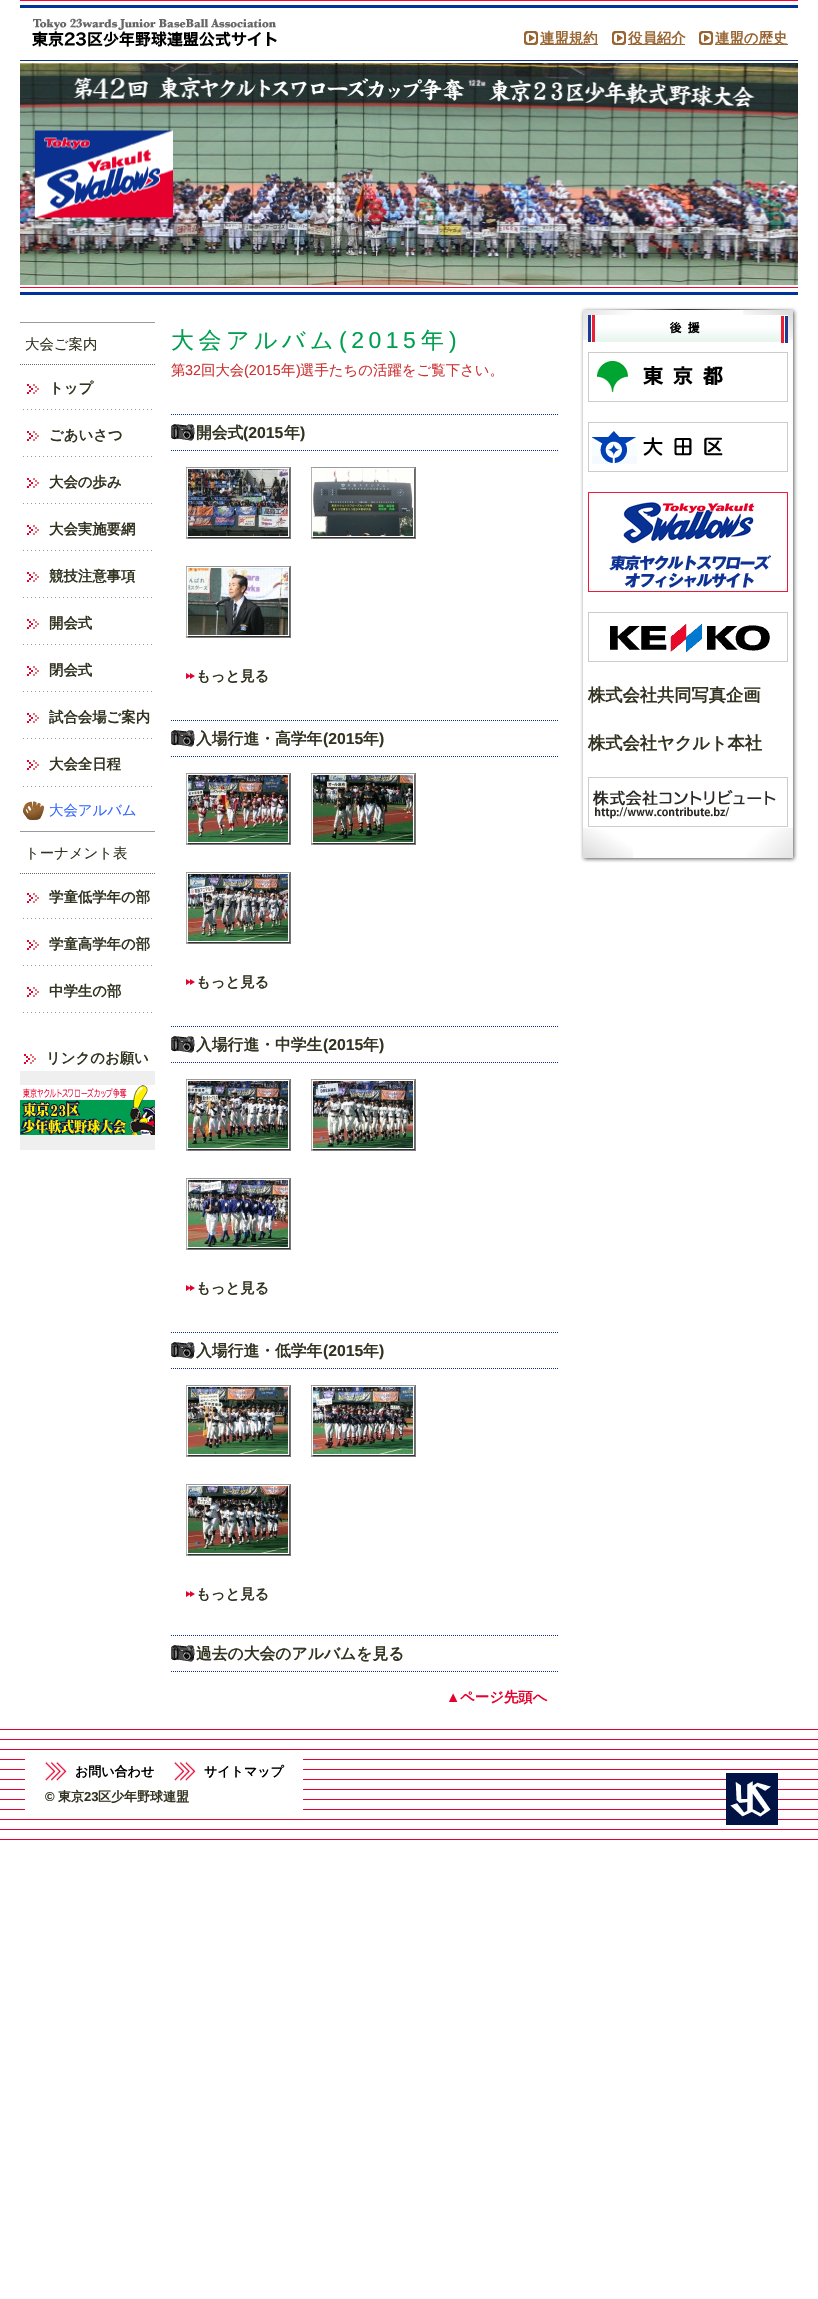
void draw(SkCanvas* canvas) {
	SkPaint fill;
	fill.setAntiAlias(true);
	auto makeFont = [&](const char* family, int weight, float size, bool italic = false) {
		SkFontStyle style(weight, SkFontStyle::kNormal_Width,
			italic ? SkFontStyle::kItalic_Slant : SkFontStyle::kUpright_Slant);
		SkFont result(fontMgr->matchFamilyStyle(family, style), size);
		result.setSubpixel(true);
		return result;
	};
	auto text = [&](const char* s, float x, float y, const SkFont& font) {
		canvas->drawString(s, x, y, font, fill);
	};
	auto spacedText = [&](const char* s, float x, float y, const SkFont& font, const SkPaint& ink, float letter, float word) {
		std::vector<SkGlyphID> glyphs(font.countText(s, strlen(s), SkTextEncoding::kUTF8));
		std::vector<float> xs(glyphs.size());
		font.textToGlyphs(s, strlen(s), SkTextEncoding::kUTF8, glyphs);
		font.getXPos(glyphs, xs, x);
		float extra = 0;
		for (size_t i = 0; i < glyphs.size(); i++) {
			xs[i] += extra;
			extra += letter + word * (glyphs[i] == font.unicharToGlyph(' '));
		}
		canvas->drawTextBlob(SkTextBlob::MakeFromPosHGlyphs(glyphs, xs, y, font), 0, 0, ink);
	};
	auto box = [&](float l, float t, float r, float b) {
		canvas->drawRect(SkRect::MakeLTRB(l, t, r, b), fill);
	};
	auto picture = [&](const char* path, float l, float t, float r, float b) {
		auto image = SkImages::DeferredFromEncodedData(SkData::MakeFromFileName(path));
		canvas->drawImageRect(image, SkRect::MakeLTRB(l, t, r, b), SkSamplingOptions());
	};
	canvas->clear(0xFFFFFFFF);
	picture("image0.png", 20, 0, 798, 8);
	fill.setColor(0xFF0C3090);
	box(20, 60, 798, 61);
	picture("image1.png", 32, 18, 277, 47);
	picture("image2.png", 524, 31, 538, 45);
	fill.setColor(0xFF996633);
	box(540, 44, 598, 45);
	picture("image2.png", 612, 31, 626, 45);
	box(628, 44, 685, 45);
	picture("image2.png", 699, 31, 713, 45);
	box(715, 44, 788, 45);
	picture("image3.png", 20, 63, 798, 285);
	picture("image4.png", 35, 130, 173, 218);
	picture("image0.png", 20, 287, 798, 295);
	picture("image5.png", 20, 364, 155, 365);
	fill.setColor(0xFF999999);
	box(20, 322, 155, 323);
	picture("image6.png", 23, 409, 152, 410);
	picture("image7.png", 27, 384, 39, 394);
	picture("image6.png", 23, 456, 152, 457);
	picture("image7.png", 27, 431, 39, 441);
	picture("image6.png", 23, 503, 152, 504);
	picture("image7.png", 27, 478, 39, 488);
	picture("image6.png", 23, 550, 152, 551);
	picture("image7.png", 27, 525, 39, 535);
	picture("image6.png", 23, 597, 152, 598);
	picture("image7.png", 27, 572, 39, 582);
	picture("image6.png", 23, 644, 152, 645);
	picture("image7.png", 27, 619, 39, 629);
	picture("image6.png", 23, 691, 152, 692);
	picture("image7.png", 27, 666, 39, 676);
	picture("image6.png", 23, 738, 152, 739);
	picture("image7.png", 27, 713, 39, 723);
	picture("image6.png", 23, 786, 152, 787);
	picture("image7.png", 27, 760, 39, 770);
	picture("image8.png", 23, 801, 44, 820);
	picture("image5.png", 20, 873, 155, 874);
	box(20, 831, 155, 832);
	picture("image6.png", 23, 918, 152, 919);
	picture("image7.png", 27, 893, 39, 903);
	picture("image6.png", 23, 965, 152, 966);
	picture("image7.png", 27, 940, 39, 950);
	picture("image6.png", 23, 1012, 152, 1013);
	picture("image7.png", 27, 987, 39, 997);
	fill.setColor(0xFFEFEFEF);
	box(20, 1071, 155, 1150);
	picture("image7.png", 24, 1054, 36, 1064);
	picture("image9.png", 20, 1085, 155, 1135);
	picture("image10.png", 171, 424, 195, 441);
	fill.setStyle(SkPaint::kStroke_Style);
	fill.setStrokeWidth(1);
	fill.setColor(0xFF0B308E);
	fill.setPathEffect(SkDashPathEffect::Make({{1, 1}}, 0));
	canvas->drawPath(SkPathBuilder().moveTo(171, 414.5f).lineTo(558, 414.5f).detach(), fill);
	fill.setPathEffect(nullptr);
	fill.setPathEffect(SkDashPathEffect::Make({{1, 1}}, 0));
	canvas->drawPath(SkPathBuilder().moveTo(171, 450.5f).lineTo(558, 450.5f).detach(), fill);
	fill.setPathEffect(nullptr);
	picture("image11.png", 186, 467, 291, 539);
	picture("image12.png", 188, 469, 288, 536);
	picture("image11.png", 311, 467, 416, 539);
	picture("image13.png", 313, 469, 413, 536);
	picture("image11.png", 186, 566, 291, 638);
	picture("image14.png", 188, 568, 288, 635);
	picture("image15.png", 186, 673, 195, 679);
	picture("image10.png", 171, 730, 195, 747);
	fill.setPathEffect(SkDashPathEffect::Make({{1, 1}}, 0));
	canvas->drawPath(SkPathBuilder().moveTo(171, 720.5f).lineTo(558, 720.5f).detach(), fill);
	fill.setPathEffect(nullptr);
	fill.setPathEffect(SkDashPathEffect::Make({{1, 1}}, 0));
	canvas->drawPath(SkPathBuilder().moveTo(171, 756.5f).lineTo(558, 756.5f).detach(), fill);
	fill.setPathEffect(nullptr);
	picture("image11.png", 186, 773, 291, 845);
	picture("image16.png", 188, 775, 288, 842);
	picture("image11.png", 311, 773, 416, 845);
	picture("image17.png", 313, 775, 413, 842);
	picture("image11.png", 186, 872, 291, 944);
	picture("image18.png", 188, 874, 288, 941);
	picture("image15.png", 186, 979, 195, 985);
	picture("image10.png", 171, 1036, 195, 1053);
	fill.setPathEffect(SkDashPathEffect::Make({{1, 1}}, 0));
	canvas->drawPath(SkPathBuilder().moveTo(171, 1026.5f).lineTo(558, 1026.5f).detach(), fill);
	fill.setPathEffect(nullptr);
	fill.setPathEffect(SkDashPathEffect::Make({{1, 1}}, 0));
	canvas->drawPath(SkPathBuilder().moveTo(171, 1062.5f).lineTo(558, 1062.5f).detach(), fill);
	fill.setPathEffect(nullptr);
	picture("image11.png", 186, 1079, 291, 1151);
	picture("image19.png", 188, 1081, 288, 1148);
	picture("image11.png", 311, 1079, 416, 1151);
	picture("image20.png", 313, 1081, 413, 1148);
	picture("image11.png", 186, 1178, 291, 1250);
	picture("image21.png", 188, 1180, 288, 1247);
	picture("image15.png", 186, 1285, 195, 1291);
	picture("image10.png", 171, 1342, 195, 1359);
	fill.setPathEffect(SkDashPathEffect::Make({{1, 1}}, 0));
	canvas->drawPath(SkPathBuilder().moveTo(171, 1332.5f).lineTo(558, 1332.5f).detach(), fill);
	fill.setPathEffect(nullptr);
	fill.setPathEffect(SkDashPathEffect::Make({{1, 1}}, 0));
	canvas->drawPath(SkPathBuilder().moveTo(171, 1368.5f).lineTo(558, 1368.5f).detach(), fill);
	fill.setPathEffect(nullptr);
	picture("image11.png", 186, 1385, 291, 1457);
	picture("image22.png", 188, 1387, 288, 1454);
	picture("image11.png", 311, 1385, 416, 1457);
	picture("image23.png", 313, 1387, 413, 1454);
	picture("image11.png", 186, 1484, 291, 1556);
	picture("image24.png", 188, 1486, 288, 1553);
	picture("image15.png", 186, 1591, 195, 1597);
	fill.setPathEffect(SkDashPathEffect::Make({{1, 1}}, 0));
	canvas->drawPath(SkPathBuilder().moveTo(171, 1635.5f).lineTo(558, 1635.5f).detach(), fill);
	fill.setPathEffect(nullptr);
	fill.setPathEffect(SkDashPathEffect::Make({{1, 1}}, 0));
	canvas->drawPath(SkPathBuilder().moveTo(171, 1671.5f).lineTo(558, 1671.5f).detach(), fill);
	fill.setPathEffect(nullptr);
	picture("image10.png", 171, 1645, 195, 1662);
	picture("image25.png", 580, 343, 798, 828);
	picture("image26.png", 580, 307, 798, 343);
	picture("image27.png", 580, 828, 798, 867);
	picture("image28.png", 588, 352, 788, 402);
	picture("image29.png", 588, 422, 788, 472);
	picture("image30.png", 588, 492, 788, 592);
	picture("image31.png", 588, 612, 788, 662);
	picture("image32.png", 588, 777, 788, 827);
	picture("image33.png", 0, 1729, 818, 1840);
	fill.setStyle(SkPaint::kFill_Style);
	fill.setColor(0xFFFFFFFF);
	box(25, 1759, 303, 1810);
	picture("image34.png", 45, 1761, 67, 1781);
	picture("image34.png", 174, 1761, 196, 1781);
	picture("image35.png", 726, 1773, 778, 1825);
	auto font1 = makeFont("WenQuanYi Zen Hei", 700, 14.4f);
	fill.setColor(0xFF996633);
	text("連盟規約", 540, 43, font1);
	text("役員紹介", 628, 43, font1);
	text("連盟の歴史", 715, 43, font1);
	auto font2 = makeFont("WenQuanYi Zen Hei", 500, 14.4f);
	fill.setColor(0xFF333322);
	text("大会ご案内", 25, 349, font2);
	text("トップ", 49, 393, font1);
	text("ごあいさつ", 49, 440, font1);
	text("大会の歩み", 49, 487, font1);
	text("大会実施要網", 49, 534, font1);
	text("競技注意事項", 49, 581, font1);
	text("開会式", 49, 628, font1);
	text("閉会式", 49, 675, font1);
	text("試合会場ご案内", 49, 722, font1);
	text("大会全日程", 49, 769, font1);
	fill.setColor(0xFF3469FF);
	text("大会アルバム", 49, 815, font2);
	fill.setColor(0xFF333322);
	text("トーナメント表", 25, 858, font2);
	text("学童低学年の部", 49, 902, font1);
	text("学童高学年の部", 49, 949, font1);
	text("中学生の部", 49, 996, font1);
	text("リンクのお願い", 46, 1063, font1);
	auto font3 = makeFont("WenQuanYi Zen Hei", 500, 23);
	fill.setColor(0xFF009F50);
	spacedText("大会アルバム", 171, 348, font3, fill, 4.5f, 0);
	auto font4 = makeFont("Liberation Sans", 400, 23);
	spacedText("(2015", 339, 348, font4, fill, 4.5f, 0);
	spacedText("年", 421, 348, font3, fill, 4.5f, 0);
	spacedText(")", 449, 348, font4, fill, 4.5f, 0);
	fill.setColor(0xFFCC3333);
	text("第", 171, 375, font2);
	auto font5 = makeFont("Liberation Sans", 400, 14.4f);
	text("32", 185, 375, font5);
	text("回大会", 201, 375, font2);
	text("(2015", 244, 375, font5);
	text("年", 281, 375, font2);
	text(")", 296, 375, font5);
	text("選手たちの活躍をご覧下さい。", 300, 375, font2);
	auto font6 = makeFont("WenQuanYi Zen Hei", 700, 15.8f);
	fill.setColor(0xFF333322);
	text("開会式", 196, 438, font6);
	auto font7 = makeFont("Liberation Sans", 700, 15.8f);
	text("(2015", 243, 438, font7);
	text("年", 284, 438, font6);
	text(")", 300, 438, font7);
	text("もっと見る", 196, 681, font1);
	text("入場行進・高学年", 196, 744, font6);
	text("(2015", 323, 744, font7);
	text("年", 363, 744, font6);
	text(")", 379, 744, font7);
	text("もっと見る", 196, 987, font1);
	text("入場行進・中学生", 196, 1050, font6);
	text("(2015", 323, 1050, font7);
	text("年", 363, 1050, font6);
	text(")", 379, 1050, font7);
	text("もっと見る", 196, 1293, font1);
	text("入場行進・低学年", 196, 1356, font6);
	text("(2015", 323, 1356, font7);
	text("年", 363, 1356, font6);
	text(")", 379, 1356, font7);
	text("もっと見る", 196, 1599, font1);
	text("過去の大会のアルバムを見る", 196, 1659, font6);
	auto font8 = makeFont("Liberation Sans", 700, 14.4f);
	fill.setColor(0xFFE5002D);
	text("▲", 446, 1702, font8);
	text("ページ先頭へ", 460, 1702, font1);
	auto font9 = makeFont("WenQuanYi Zen Hei", 700, 17.25f);
	fill.setColor(0xFF333322);
	text("株式会社共同写真企画", 588, 701, font9);
	text("株式会社ヤクルト本社", 588, 749, font9);
	auto font10 = makeFont("WenQuanYi Zen Hei", 700, 13);
	fill.setColor(0xFF000000);
	text("お問い合わせ", 75, 1776, font10);
	text("サイトマップ", 204, 1776, font10);
	auto font11 = makeFont("Liberation Sans", 700, 13);
	fill.setColor(0xFF333322);
	text("©", 45, 1801, font11);
	text("東京", 58, 1801, font10);
	text("23", 84, 1801, font11);
	text("区少年野球連盟", 98, 1801, font10);
}
